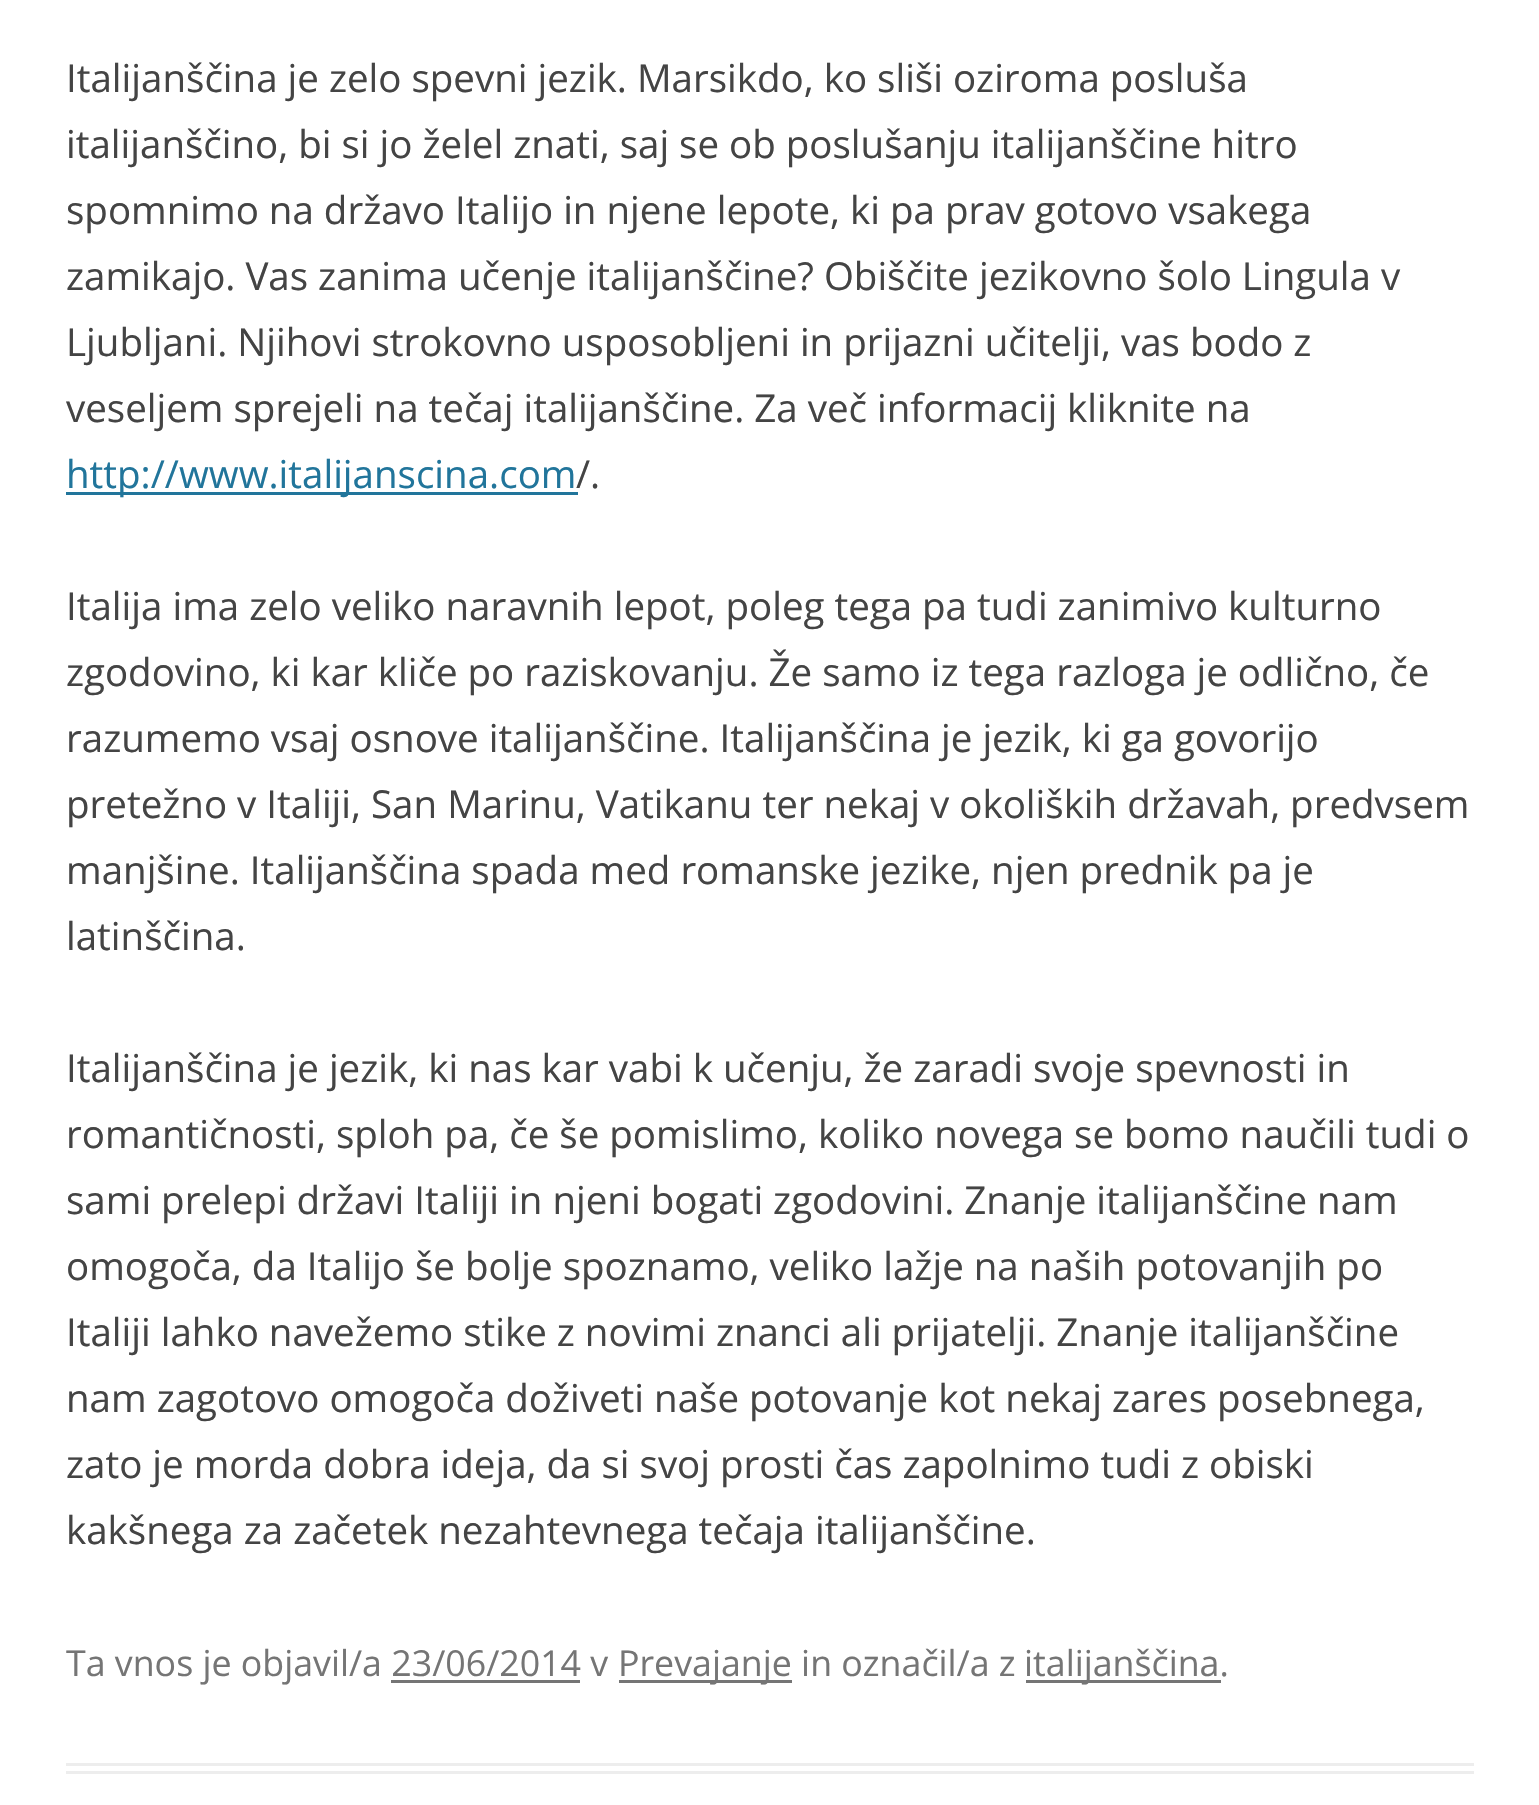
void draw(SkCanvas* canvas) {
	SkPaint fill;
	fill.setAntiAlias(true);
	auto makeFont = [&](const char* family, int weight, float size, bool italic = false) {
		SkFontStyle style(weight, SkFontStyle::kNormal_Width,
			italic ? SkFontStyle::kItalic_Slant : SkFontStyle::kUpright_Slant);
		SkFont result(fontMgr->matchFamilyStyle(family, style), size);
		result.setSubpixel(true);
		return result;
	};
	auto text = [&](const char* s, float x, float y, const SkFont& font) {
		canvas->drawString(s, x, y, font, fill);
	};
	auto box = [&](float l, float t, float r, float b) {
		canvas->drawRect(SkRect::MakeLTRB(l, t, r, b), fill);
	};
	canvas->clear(0xFFFFFFFF);
	fill.setColor(0xFFEDEDED);
	box(66, 1763, 1474, 1766);
	box(66, 1771, 1474, 1774);
	fill.setColor(0xFF21759B);
	box(66, 492, 578, 495);
	fill.setColor(0xFF757575);
	box(619, 1680, 792, 1683);
	box(1026, 1680, 1221, 1683);
	box(391, 1680, 580, 1683);
	auto font1 = makeFont("Open Sans", 400, 38.5f);
	fill.setColor(0xFF444444);
	text("Italijanščina je zelo spevni jezik. Marsikdo, ko sliši oziroma posluša", 66, 92, font1);
	text("italijanščino, bi si jo želel znati, saj se ob poslušanju italijanščine hitro", 66, 158, font1);
	text("spomnimo na državo Italijo in njene lepote, ki pa prav gotovo vsakega", 66, 224, font1);
	text("zamikajo. Vas zanima učenje italijanščine? Obiščite jezikovno šolo Lingula v", 66, 290, font1);
	text("Ljubljani. Njihovi strokovno usposobljeni in prijazni učitelji, vas bodo z", 66, 356, font1);
	text("veseljem sprejeli na tečaj italijanščine. Za več informacij kliknite na", 66, 422, font1);
	fill.setColor(0xFF21759B);
	text("http://www.italijanscina.com", 66, 488, font1);
	fill.setColor(0xFF444444);
	text("/.", 576, 488, font1);
	text("Italija ima zelo veliko naravnih lepot, poleg tega pa tudi zanimivo kulturno", 66, 620, font1);
	text("zgodovino, ki kar kliče po raziskovanju. Že samo iz tega razloga je odlično, če", 66, 686, font1);
	text("razumemo vsaj osnove italijanščine. Italijanščina je jezik, ki ga govorijo", 66, 752, font1);
	text("pretežno v Italiji, San Marinu, Vatikanu ter nekaj v okoliških državah, predvsem", 66, 818, font1);
	text("manjšine. Italijanščina spada med romanske jezike, njen prednik pa je", 66, 884, font1);
	text("latinščina.", 66, 950, font1);
	text("Italijanščina je jezik, ki nas kar vabi k učenju, že zaradi svoje spevnosti in", 66, 1082, font1);
	text("romantičnosti, sploh pa, če še pomislimo, koliko novega se bomo naučili tudi o", 66, 1148, font1);
	text("sami prelepi državi Italiji in njeni bogati zgodovini. Znanje italijanščine nam", 66, 1214, font1);
	text("omogoča, da Italijo še bolje spoznamo, veliko lažje na naših potovanjih po", 66, 1280, font1);
	text("Italiji lahko navežemo stike z novimi znanci ali prijatelji. Znanje italijanščine", 66, 1346, font1);
	text("nam zagotovo omogoča doživeti naše potovanje kot nekaj zares posebnega,", 66, 1412, font1);
	text("zato je morda dobra ideja, da si svoj prosti čas zapolnimo tudi z obiski", 66, 1478, font1);
	text("kakšnega za začetek nezahtevnega tečaja italijanščine.", 66, 1544, font1);
	auto font2 = makeFont("Open Sans", 400, 35.75f);
	fill.setColor(0xFF757575);
	text("Ta vnos je objavil/a 23/06/2014 v", 66, 1676, font2);
	text("Prevajanje in označil/a z", 618, 1676, font2);
	text("italijanščina.", 1024, 1676, font2);
}
